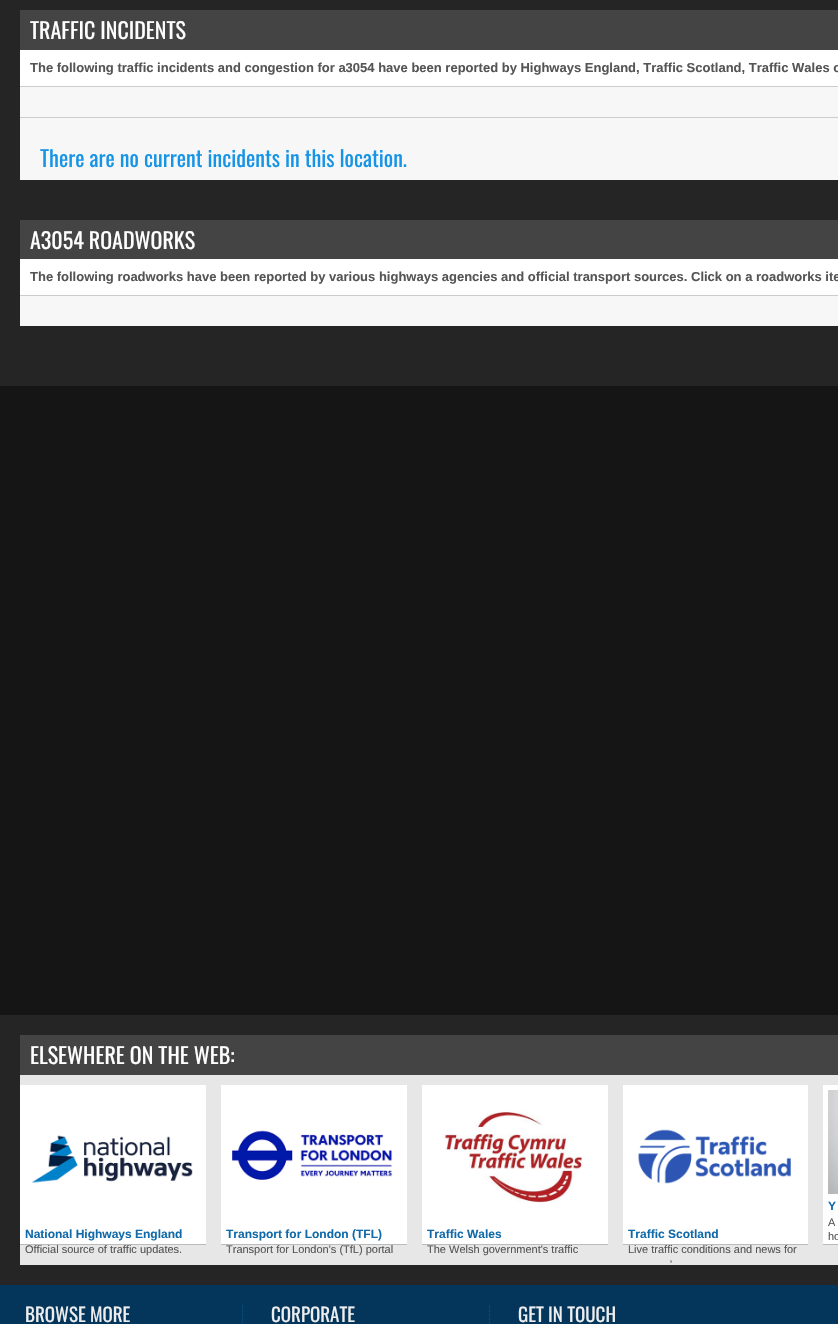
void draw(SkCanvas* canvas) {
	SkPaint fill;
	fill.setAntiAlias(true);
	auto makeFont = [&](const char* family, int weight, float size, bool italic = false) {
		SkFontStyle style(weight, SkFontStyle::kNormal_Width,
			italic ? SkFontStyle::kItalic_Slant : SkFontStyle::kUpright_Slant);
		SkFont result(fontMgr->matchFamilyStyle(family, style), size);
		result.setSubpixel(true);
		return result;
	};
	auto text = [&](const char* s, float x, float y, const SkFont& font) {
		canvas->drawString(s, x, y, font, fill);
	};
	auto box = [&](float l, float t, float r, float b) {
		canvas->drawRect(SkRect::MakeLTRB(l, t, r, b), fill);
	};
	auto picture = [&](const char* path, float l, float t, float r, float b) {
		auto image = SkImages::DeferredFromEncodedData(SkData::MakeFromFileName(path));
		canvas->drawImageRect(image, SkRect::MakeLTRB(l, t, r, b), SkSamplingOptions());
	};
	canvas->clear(0xFF04365C);
	fill.setColor(0xFF252525);
	box(0, 0, 838, 386);
	fill.setColor(0xFF444444);
	box(20, 10, 838, 50);
	fill.setColor(0xFFFFFFFF);
	box(20, 50, 838, 86);
	fill.setColor(0xFFF7F7F7);
	box(20, 87, 838, 117);
	fill.setColor(0xFFCCCCCC);
	box(20, 86, 838, 87);
	fill.setColor(0xFFF7F7F7);
	box(20, 118, 838, 180);
	fill.setColor(0xFFCCCCCC);
	box(20, 117, 838, 118);
	fill.setColor(0xFF444444);
	box(20, 220, 838, 259);
	fill.setColor(0xFFFFFFFF);
	box(20, 259, 838, 295);
	fill.setColor(0xFFF7F7F7);
	box(20, 296, 838, 326);
	fill.setColor(0xFFCCCCCC);
	box(20, 295, 838, 296);
	fill.setColor(0xFF151515);
	box(0, 386, 838, 1015);
	fill.setColor(0xFF252525);
	box(0, 1015, 838, 1285);
	fill.setColor(0xFF444444);
	box(20, 1035, 838, 1075);
	fill.setColor(0xFFE7E7E7);
	box(20, 1075, 838, 1265);
	fill.setColor(0xFFFFFFFF);
	box(20, 1085, 206, 1244);
	fill.setColor(0xFFBBBBBB);
	box(20, 1244, 206, 1245);
	picture("image0.png", 31, 1135, 193, 1183);
	fill.setColor(0xFFFFFFFF);
	box(221, 1085, 407, 1244);
	fill.setColor(0xFFBBBBBB);
	box(221, 1244, 407, 1245);
	picture("image1.png", 232, 1130, 393, 1180);
	fill.setColor(0xFFFFFFFF);
	box(422, 1085, 608, 1244);
	fill.setColor(0xFFBBBBBB);
	box(422, 1244, 608, 1245);
	picture("image2.png", 442, 1111, 583, 1203);
	fill.setColor(0xFFFFFFFF);
	box(623, 1085, 808, 1244);
	fill.setColor(0xFFBBBBBB);
	box(623, 1244, 808, 1245);
	picture("image3.png", 638, 1129, 791, 1184);
	fill.setColor(0xFFFFFFFF);
	box(823, 1085, 838, 1244);
	fill.setColor(0xFFBBBBBB);
	box(823, 1244, 838, 1245);
	picture("image4.png", 828, 1090, 838, 1194);
	fill.setStyle(SkPaint::kStroke_Style);
	fill.setStrokeWidth(1);
	fill.setColor(0xFF06558E);
	fill.setPathEffect(SkDashPathEffect::Make({{1, 1}}, 0));
	canvas->drawPath(SkPathBuilder().moveTo(242.5f, 1305).lineTo(242.5f, 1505).detach(), fill);
	fill.setPathEffect(nullptr);
	fill.setPathEffect(SkDashPathEffect::Make({{1, 1}}, 0));
	canvas->drawPath(SkPathBuilder().moveTo(489.5f, 1305).lineTo(489.5f, 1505).detach(), fill);
	fill.setPathEffect(nullptr);
	auto font1 = makeFont("Oswald", 400, 22);
	fill.setStyle(SkPaint::kFill_Style);
	fill.setColor(0xFFFFFFFF);
	text("TRAFFIC INCIDENTS", 30, 39, font1);
	auto font2 = makeFont("Liberation Sans", 700, 13);
	fill.setColor(0xFF555555);
	text("The following traffic incidents and congestion for a3054 have been reported by Highways England, Traffic Scotland, Traffic Wales o", 30, 72, font2);
	fill.setColor(0xFF1694E6);
	text("There are no current incidents in this location.", 40, 167, font1);
	fill.setColor(0xFFFFFFFF);
	text("A3054 ROADWORKS", 30, 249, font1);
	fill.setColor(0xFF555555);
	text("The following roadworks have been reported by various highways agencies and official transport sources. Click on a roadworks ite", 30, 281, font2);
	fill.setColor(0xFFFFFFFF);
	text("ELSEWHERE ON THE WEB:", 30, 1064, font1);
	auto font3 = makeFont("Liberation Sans", 700, 12);
	fill.setColor(0xFF106AA9);
	text("National Highways England", 25, 1238, font3);
	auto font4 = makeFont("Liberation Sans", 400, 11);
	fill.setColor(0xFF555555);
	text("Official source of traffic updates.", 25, 1253, font4);
	fill.setColor(0xFF106AA9);
	text("Transport for London (TFL)", 226, 1238, font3);
	fill.setColor(0xFF555555);
	text("Transport for London's (TfL) portal", 226, 1253, font4);
	fill.setColor(0xFF106AA9);
	text("Traffic Wales", 427, 1238, font3);
	fill.setColor(0xFF555555);
	text("The Welsh government's traffic", 427, 1253, font4);
	fill.setColor(0xFF106AA9);
	text("Traffic Scotland", 628, 1238, font3);
	fill.setColor(0xFF555555);
	text("Live traffic conditions and news for", 628, 1253, font4);
	text("'", 670, 1268, font4);
	fill.setColor(0xFF106AA9);
	text("Y", 828, 1210, font3);
	fill.setColor(0xFF555555);
	text("A", 828, 1226, font4);
	text("ho", 828, 1240, font4);
	auto font5 = makeFont("Oswald", 400, 19);
	fill.setColor(0xFFEEEEEE);
	text("BROWSE MORE", 25, 1322, font5);
	text("CORPORATE", 271, 1322, font5);
	text("GET IN TOUCH", 518, 1322, font5);
}
